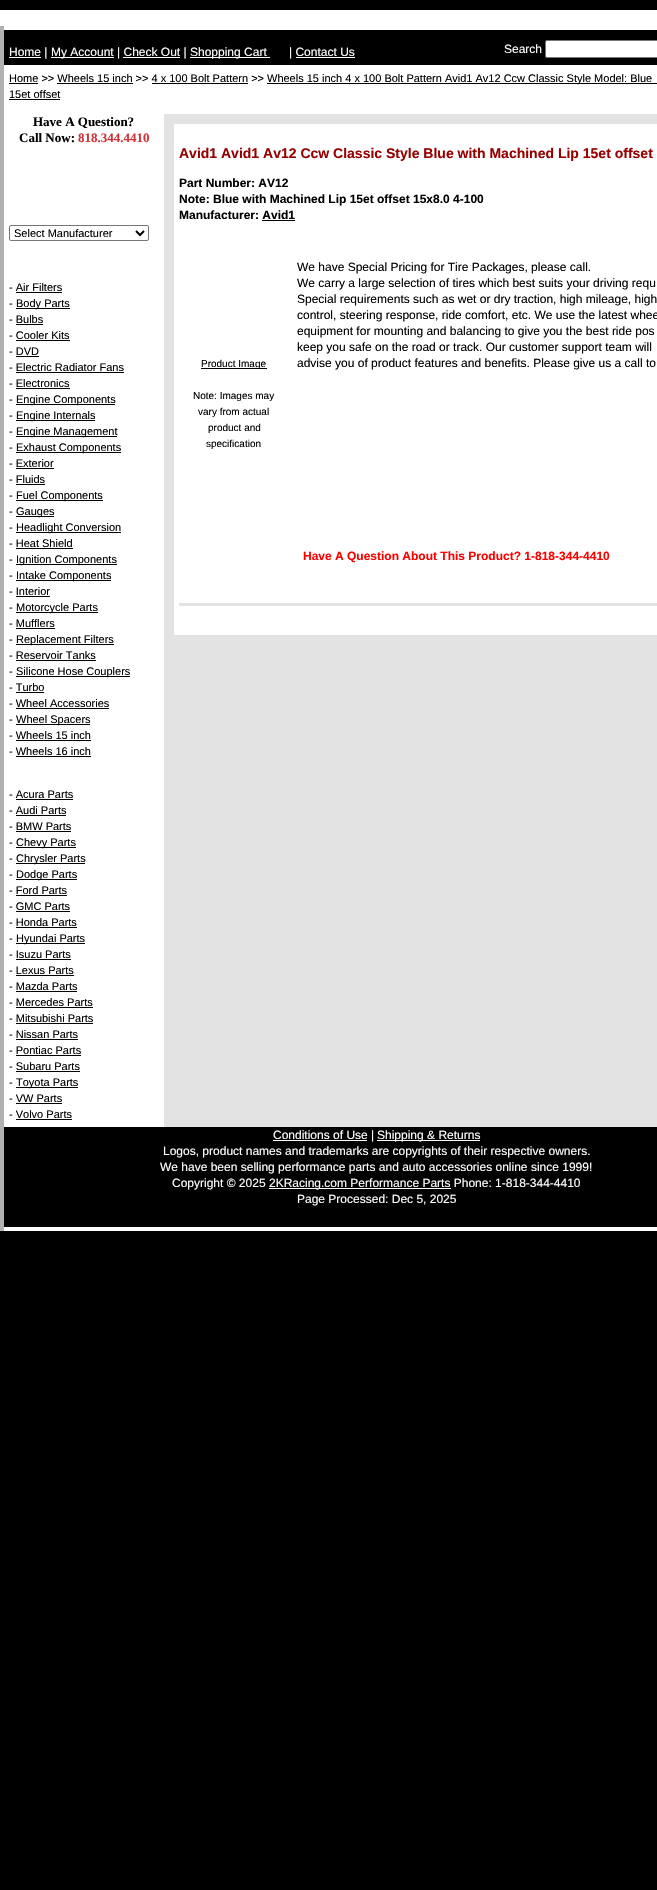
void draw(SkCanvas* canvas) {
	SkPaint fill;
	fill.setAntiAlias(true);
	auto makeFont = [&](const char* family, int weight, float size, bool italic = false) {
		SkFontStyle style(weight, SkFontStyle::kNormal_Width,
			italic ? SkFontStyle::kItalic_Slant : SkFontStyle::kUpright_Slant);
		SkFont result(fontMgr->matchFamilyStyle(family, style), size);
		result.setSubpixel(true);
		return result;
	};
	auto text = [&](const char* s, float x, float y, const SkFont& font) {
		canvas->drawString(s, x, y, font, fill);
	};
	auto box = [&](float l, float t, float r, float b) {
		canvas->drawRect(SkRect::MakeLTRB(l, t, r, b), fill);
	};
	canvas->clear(0xFF000000);
	fill.setColor(0xFFFFFFFF);
	box(0, 10, 657, 1231);
	fill.setColor(0xFFB1B1B1);
	box(0, 26, 4, 1231);
	fill.setColor(0xFF000000);
	box(4, 30, 657, 65);
	fill.setColor(0xFFFFFFFF);
	box(9, 57, 41, 58);
	box(51, 57, 114, 58);
	box(190, 57, 270, 58);
	box(123, 57, 180, 58);
	box(296, 57, 355, 58);
	canvas->drawRoundRect(SkRect::MakeLTRB(545.5f, 40.5f, 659.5f, 57.5f), 1.5f, 1.5f, fill);
	fill.setStyle(SkPaint::kStroke_Style);
	fill.setStrokeWidth(1);
	fill.setColor(0xFF767676);
	canvas->drawRoundRect(SkRect::MakeLTRB(545.5f, 40.5f, 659.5f, 57.5f), 1.5f, 1.5f, fill);
	fill.setStyle(SkPaint::kFill_Style);
	fill.setColor(0xFF000000);
	box(9, 83, 38, 84);
	box(267, 83, 657, 84);
	box(57, 83, 133, 84);
	box(152, 83, 248, 84);
	box(9, 99, 60, 100);
	fill.setStyle(SkPaint::kStroke_Style);
	fill.setColor(0xFF767676);
	canvas->drawRoundRect(SkRect::MakeLTRB(9.5f, 225.5f, 148.5f, 240.5f), 1.5f, 1.5f, fill);
	fill.setStrokeWidth(2);
	fill.setColor(0xFF000000);
	canvas->drawPath(SkPathBuilder().moveTo(136, 231).lineTo(140, 235).lineTo(144, 231).detach(), fill);
	fill.setStyle(SkPaint::kFill_Style);
	box(16, 292, 62, 293);
	box(16, 308, 70, 309);
	box(16, 324, 43, 325);
	box(16, 340, 70, 341);
	box(16, 356, 39, 357);
	box(16, 372, 124, 373);
	box(16, 388, 70, 389);
	box(16, 404, 115, 405);
	box(16, 420, 95, 421);
	box(16, 436, 117, 437);
	box(16, 452, 121, 453);
	box(16, 468, 54, 469);
	box(16, 484, 45, 485);
	box(16, 500, 103, 501);
	box(16, 516, 54, 517);
	box(16, 532, 121, 533);
	box(16, 548, 73, 549);
	box(16, 564, 117, 565);
	box(16, 580, 111, 581);
	box(16, 596, 50, 597);
	box(16, 612, 98, 613);
	box(16, 628, 55, 629);
	box(16, 644, 114, 645);
	box(16, 660, 96, 661);
	box(16, 676, 130, 677);
	box(16, 692, 44, 693);
	box(16, 708, 109, 709);
	box(16, 724, 90, 725);
	box(16, 740, 91, 741);
	box(16, 756, 91, 757);
	box(16, 799, 73, 800);
	box(16, 815, 66, 816);
	box(16, 831, 71, 832);
	box(16, 847, 76, 848);
	box(16, 863, 85, 864);
	box(16, 879, 77, 880);
	box(16, 895, 67, 896);
	box(16, 911, 70, 912);
	box(16, 927, 77, 928);
	box(16, 943, 85, 944);
	box(16, 959, 71, 960);
	box(16, 975, 74, 976);
	box(16, 991, 77, 992);
	box(16, 1007, 93, 1008);
	box(16, 1023, 93, 1024);
	box(16, 1039, 78, 1040);
	box(16, 1055, 81, 1056);
	box(16, 1071, 80, 1072);
	box(16, 1087, 78, 1088);
	box(16, 1103, 62, 1104);
	box(16, 1119, 72, 1120);
	fill.setColor(0xFFE3E3E3);
	box(164, 114, 657, 1127);
	fill.setColor(0xFFFFFFFF);
	box(174, 124, 657, 635);
	fill.setColor(0xFF000000);
	box(262, 220, 295, 221);
	box(201, 368, 267, 369);
	fill.setColor(0xFFE3E3E3);
	box(179, 603, 657, 606);
	fill.setColor(0xFF000000);
	box(4, 1127, 657, 1227);
	fill.setColor(0xFFFFFFFF);
	box(273, 1140, 367, 1141);
	box(377, 1140, 480, 1141);
	box(269, 1188, 451, 1189);
	auto font1 = makeFont("Liberation Sans", 400, 12);
	text("Home |", 9, 56, font1);
	text("My Account | Check Out |", 51, 56, font1);
	text("Shopping Cart", 190, 56, font1);
	text("| Contact Us", 289, 56, font1);
	text("Search", 504, 53, font1);
	auto font2 = makeFont("Liberation Sans", 400, 11);
	fill.setColor(0xFF000000);
	text("Home >> Wheels 15 inch >> 4 x 100 Bolt Pattern >>", 9, 82, font2);
	text("Wheels 15 inch 4 x 100 Bolt Pattern Avid1 Av12 Ccw Classic Style Model: Blue", 267, 82, font2);
	text("15et offset", 9, 98, font2);
	auto font3 = makeFont("Liberation Serif", 700, 13);
	text("Have A Question?", 33, 126, font3);
	text("Call Now:", 19, 142, font3);
	fill.setColor(0xFFCF3438);
	text("818.344.4410", 78, 142, font3);
	fill.setColor(0xFF000000);
	text("Select Manufacturer", 14, 237, font2);
	text("- Air Filters", 9, 291, font2);
	text("-", 9, 307, font2);
	text("Body Parts", 16, 307, font2);
	text("- Bulbs", 9, 323, font2);
	text("- Cooler Kits", 9, 339, font2);
	text("- DVD", 9, 355, font2);
	text("- Electric Radiator Fans", 9, 371, font2);
	text("- Electronics", 9, 387, font2);
	text("-", 9, 403, font2);
	text("Engine Components", 16, 403, font2);
	text("-", 9, 419, font2);
	text("Engine Internals", 16, 419, font2);
	text("-", 9, 435, font2);
	text("Engine Management", 16, 435, font2);
	text("-", 9, 451, font2);
	text("Exhaust Components", 16, 451, font2);
	text("- Exterior", 9, 467, font2);
	text("- Fluids", 9, 483, font2);
	text("-", 9, 499, font2);
	text("Fuel Components", 16, 499, font2);
	text("-", 9, 515, font2);
	text("Gauges", 16, 515, font2);
	text("-", 9, 531, font2);
	text("Headlight Conversion", 16, 531, font2);
	text("- Heat Shield", 9, 547, font2);
	text("-", 9, 563, font2);
	text("Ignition Components", 16, 563, font2);
	text("-", 9, 579, font2);
	text("Intake Components", 16, 579, font2);
	text("- Interior", 9, 595, font2);
	text("-", 9, 611, font2);
	text("Motorcycle Parts", 16, 611, font2);
	text("- Mufflers", 9, 627, font2);
	text("-", 9, 643, font2);
	text("Replacement Filters", 16, 643, font2);
	text("- Reservoir Tanks", 9, 659, font2);
	text("-", 9, 675, font2);
	text("Silicone Hose Couplers", 16, 675, font2);
	text("- Turbo", 9, 691, font2);
	text("- Wheel Accessories", 9, 707, font2);
	text("-", 9, 723, font2);
	text("Wheel Spacers", 16, 723, font2);
	text("- Wheels 15 inch", 9, 739, font2);
	text("- Wheels 16 inch", 9, 755, font2);
	text("- Acura Parts", 9, 798, font2);
	text("- Audi Parts", 9, 814, font2);
	text("- BMW Parts", 9, 830, font2);
	text("-", 9, 846, font2);
	text("Chevy Parts", 16, 846, font2);
	text("-", 9, 862, font2);
	text("Chrysler Parts", 16, 862, font2);
	text("-", 9, 878, font2);
	text("Dodge Parts", 16, 878, font2);
	text("- Ford Parts", 9, 894, font2);
	text("- GMC Parts", 9, 910, font2);
	text("- Honda Parts", 9, 926, font2);
	text("-", 9, 942, font2);
	text("Hyundai Parts", 16, 942, font2);
	text("- Isuzu Parts", 9, 958, font2);
	text("- Lexus Parts", 9, 974, font2);
	text("- Mazda Parts", 9, 990, font2);
	text("- Mercedes Parts", 9, 1006, font2);
	text("- Mitsubishi Parts", 9, 1022, font2);
	text("- Nissan Parts", 9, 1038, font2);
	text("- Pontiac Parts", 9, 1054, font2);
	text("- Subaru Parts", 9, 1070, font2);
	text("-", 9, 1086, font2);
	text("Toyota Parts", 16, 1086, font2);
	text("- VW Parts", 9, 1102, font2);
	text("- Volvo Parts", 9, 1118, font2);
	auto font4 = makeFont("Liberation Sans", 700, 14);
	fill.setColor(0xFF970000);
	text("Avid1 Avid1 Av12 Ccw Classic Style Blue with Machined Lip 15et offset", 179, 158, font4);
	auto font5 = makeFont("Liberation Sans", 700, 12);
	fill.setColor(0xFF000000);
	text("Part Number: AV12", 179, 187, font5);
	text("Note: Blue with Machined Lip 15et offset 15x8.0 4-100", 179, 203, font5);
	text("Manufacturer: Avid1", 179, 219, font5);
	text("We have Special Pricing for Tire Packages, please call.", 297, 271, font1);
	text("We carry a large selection of tires which best suits your driving requ", 297, 287, font1);
	text("Special requirements such as wet or dry traction, high mileage, high", 297, 303, font1);
	text("control, steering response, ride comfort, etc. We use the latest whee", 297, 319, font1);
	text("equipment for mounting and balancing to give you the best ride pos", 297, 335, font1);
	text("keep you safe on the road or track. Our customer support team will", 297, 351, font1);
	text("advise you of product features and benefits. Please give us a call to", 297, 367, font1);
	auto font6 = makeFont("Liberation Sans", 400, 10);
	text("Product Image", 201, 367, font6);
	text("Note: Images may", 193, 399, font6);
	text("vary from actual", 198, 415, font6);
	text("product and", 208, 431, font6);
	text("specification", 206, 447, font6);
	fill.setColor(0xFFFF0000);
	text("Have A Question About This Product? 1-818-344-4410", 303, 560, font5);
	fill.setColor(0xFFFFFFFF);
	text("Conditions of Use |", 273, 1139, font1);
	text("Shipping & Returns", 377, 1139, font1);
	text("Logos, product names and trademarks are copyrights of their respective owners.", 163, 1155, font1);
	text("We have been selling performance parts and auto accessories online since 1999!", 160, 1171, font1);
	text("Copyright © 2025", 172, 1187, font1);
	text("2KRacing.com Performance Parts Phone: 1-818-344-4410", 269, 1187, font1);
	text("Page Processed: Dec 5, 2025", 297, 1203, font1);
}
